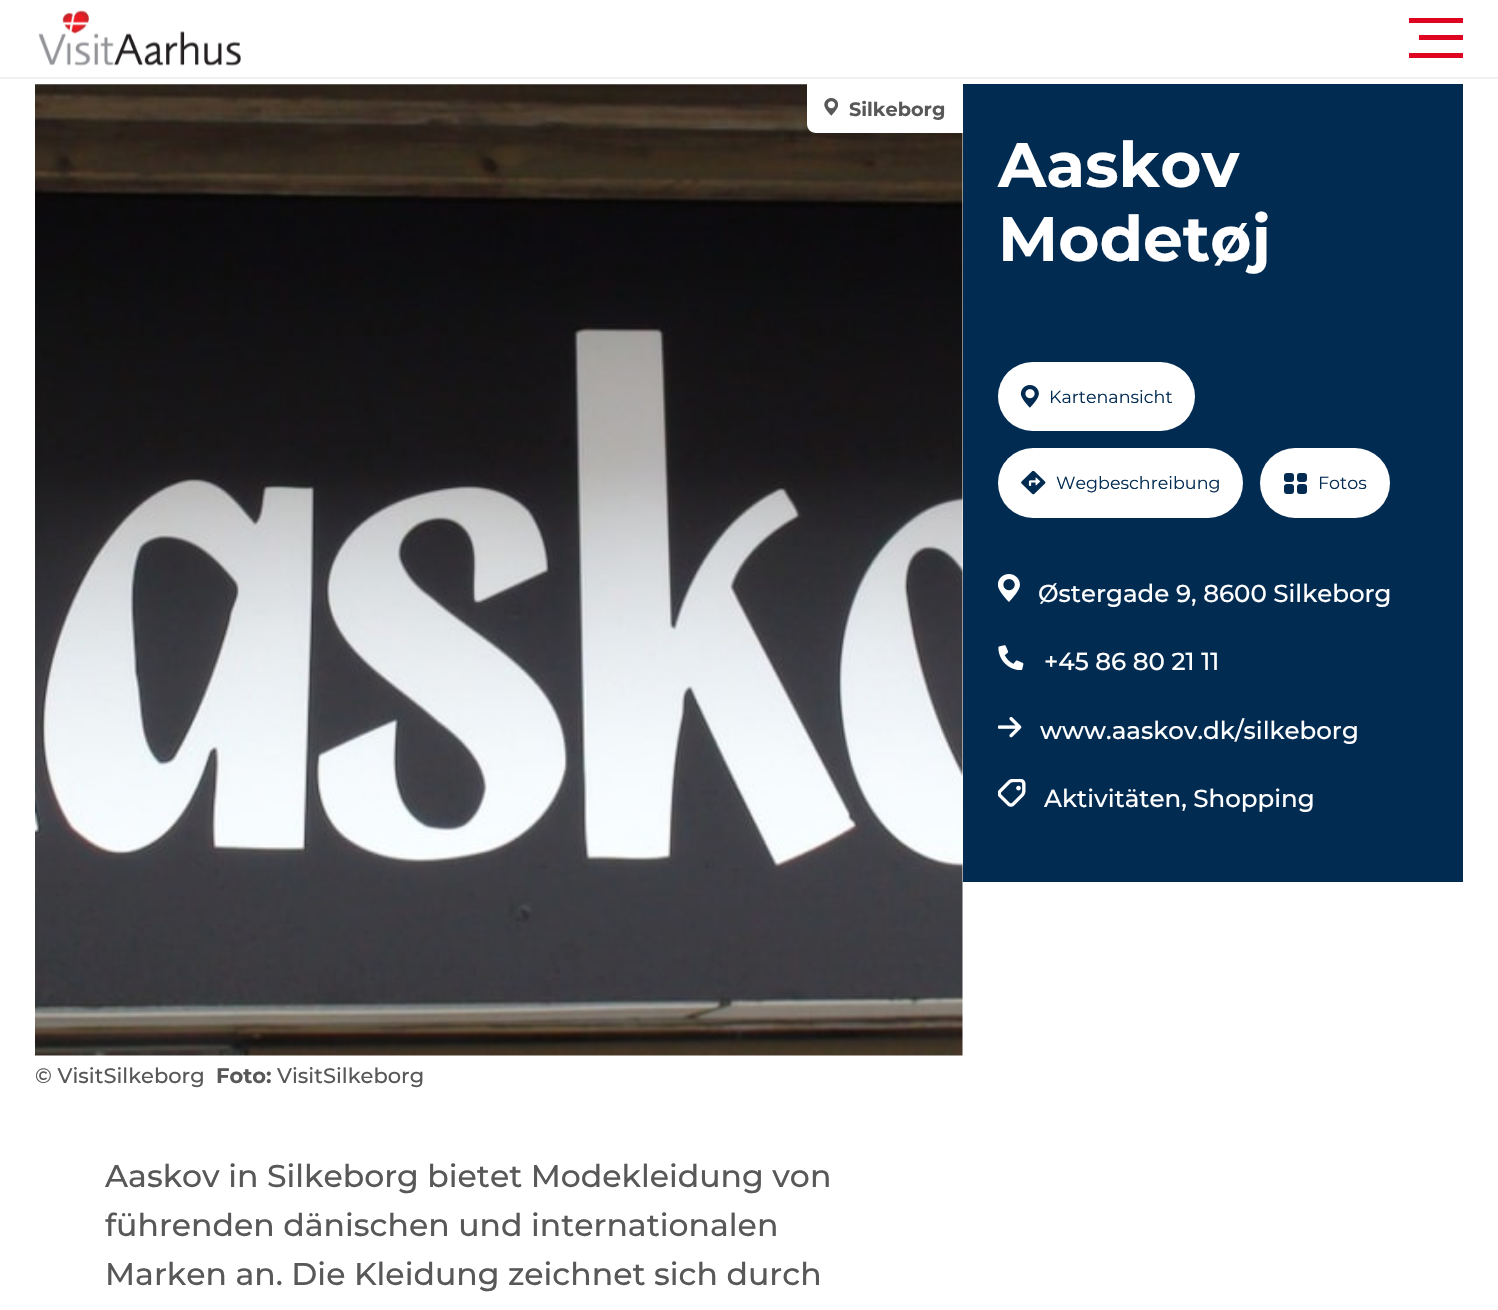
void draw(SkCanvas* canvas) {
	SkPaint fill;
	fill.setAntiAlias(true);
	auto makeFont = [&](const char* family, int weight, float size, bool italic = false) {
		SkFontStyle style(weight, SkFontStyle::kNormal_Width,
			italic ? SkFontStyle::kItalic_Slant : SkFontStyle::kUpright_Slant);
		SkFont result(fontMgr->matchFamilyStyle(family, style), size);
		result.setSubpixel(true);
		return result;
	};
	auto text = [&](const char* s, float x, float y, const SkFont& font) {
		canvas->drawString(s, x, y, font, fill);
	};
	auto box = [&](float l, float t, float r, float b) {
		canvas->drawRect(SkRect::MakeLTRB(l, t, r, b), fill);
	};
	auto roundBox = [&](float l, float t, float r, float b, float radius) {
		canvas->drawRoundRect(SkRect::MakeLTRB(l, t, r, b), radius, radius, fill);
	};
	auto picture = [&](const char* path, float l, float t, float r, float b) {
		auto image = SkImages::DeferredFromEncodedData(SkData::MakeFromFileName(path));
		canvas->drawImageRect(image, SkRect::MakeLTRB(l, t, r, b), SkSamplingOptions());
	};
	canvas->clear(0xFFFFFFFF);
	fill.setColor(0xFFF0F1F3);
	box(0, 77, 1498, 79);
	picture("image0.png", 38, 10, 241, 66);
	fill.setColor(0xFFDF041F);
	box(1409, 18, 1463, 23);
	box(1419, 35, 1463, 40);
	box(1409, 53, 1463, 58);
	picture("image1.png", 35, 84, 963, 1056);
	fill.setColor(0xFFFFFFFF);
	canvas->drawPath(SkPathBuilder().moveTo(807, 84).lineTo(963, 84).lineTo(963, 133).lineTo(816, 133).cubicTo(811, 133, 807, 129, 807, 124).close().detach(), fill);
	picture("image2.png", 824, 98, 838, 116);
	fill.setColor(0xFF022B52);
	box(963, 84, 1463, 882);
	fill.setColor(0xFFFFFFFF);
	roundBox(998, 362, 1195, 431, 34.5f);
	picture("image3.png", 1020, 385, 1039, 408);
	roundBox(998, 448, 1243, 518, 35);
	picture("image4.png", 1021, 471, 1046, 495);
	roundBox(1260, 448, 1390, 518, 35);
	fill.setColor(0xFF022B52);
	roundBox(1297, 473, 1307, 482, 3);
	roundBox(1297, 484, 1307, 494, 3);
	roundBox(1284, 473, 1294, 482, 3);
	roundBox(1284, 484, 1294, 494, 3);
	picture("image5.png", 998, 574, 1020, 602);
	picture("image6.png", 998, 645, 1024, 670);
	picture("image7.png", 998, 716, 1022, 738);
	picture("image8.png", 998, 779, 1026, 807);
	auto font1 = makeFont("Montserrat", 700, 19.25f);
	fill.setColor(0xFF585858);
	text("Silkeborg", 849, 116, font1);
	auto font2 = makeFont("Montserrat", 500, 21);
	text("© VisitSilkeborg", 35, 1083, font2);
	auto font3 = makeFont("Montserrat", 700, 21);
	text("Foto:", 216, 1083, font3);
	text("VisitSilkeborg", 277, 1083, font2);
	auto font4 = makeFont("Montserrat", 700, 63);
	fill.setColor(0xFFFFFFFF);
	text("Aaskov", 998, 187, font4);
	text("Modetøj", 998, 261, font4);
	auto font5 = makeFont("Montserrat", 400, 17.5f);
	fill.setColor(0xFF022B52);
	text("Kartenansicht", 1049, 403, font5);
	text("Wegbeschreibung", 1056, 489, font5);
	text("Fotos", 1318, 489, font5);
	auto font6 = makeFont("Montserrat", 500, 24.5f);
	fill.setColor(0xFFFFFFFF);
	text("Østergade 9, 8600 Silkeborg", 1038, 602, font6);
	text("+45 86 80 21 11", 1044, 670, font6);
	text("www.aaskov.dk/silkeborg", 1040, 739, font6);
	text("Aktivitäten, Shopping", 1044, 807, font6);
	auto font7 = makeFont("Montserrat", 500, 31.5f);
	fill.setColor(0xFF585858);
	text("Aaskov in Silkeborg bietet Modekleidung von", 105, 1187, font7);
	text("führenden dänischen und internationalen", 105, 1236, font7);
	text("Marken an. Die Kleidung zeichnet sich durch", 105, 1285, font7);
}
